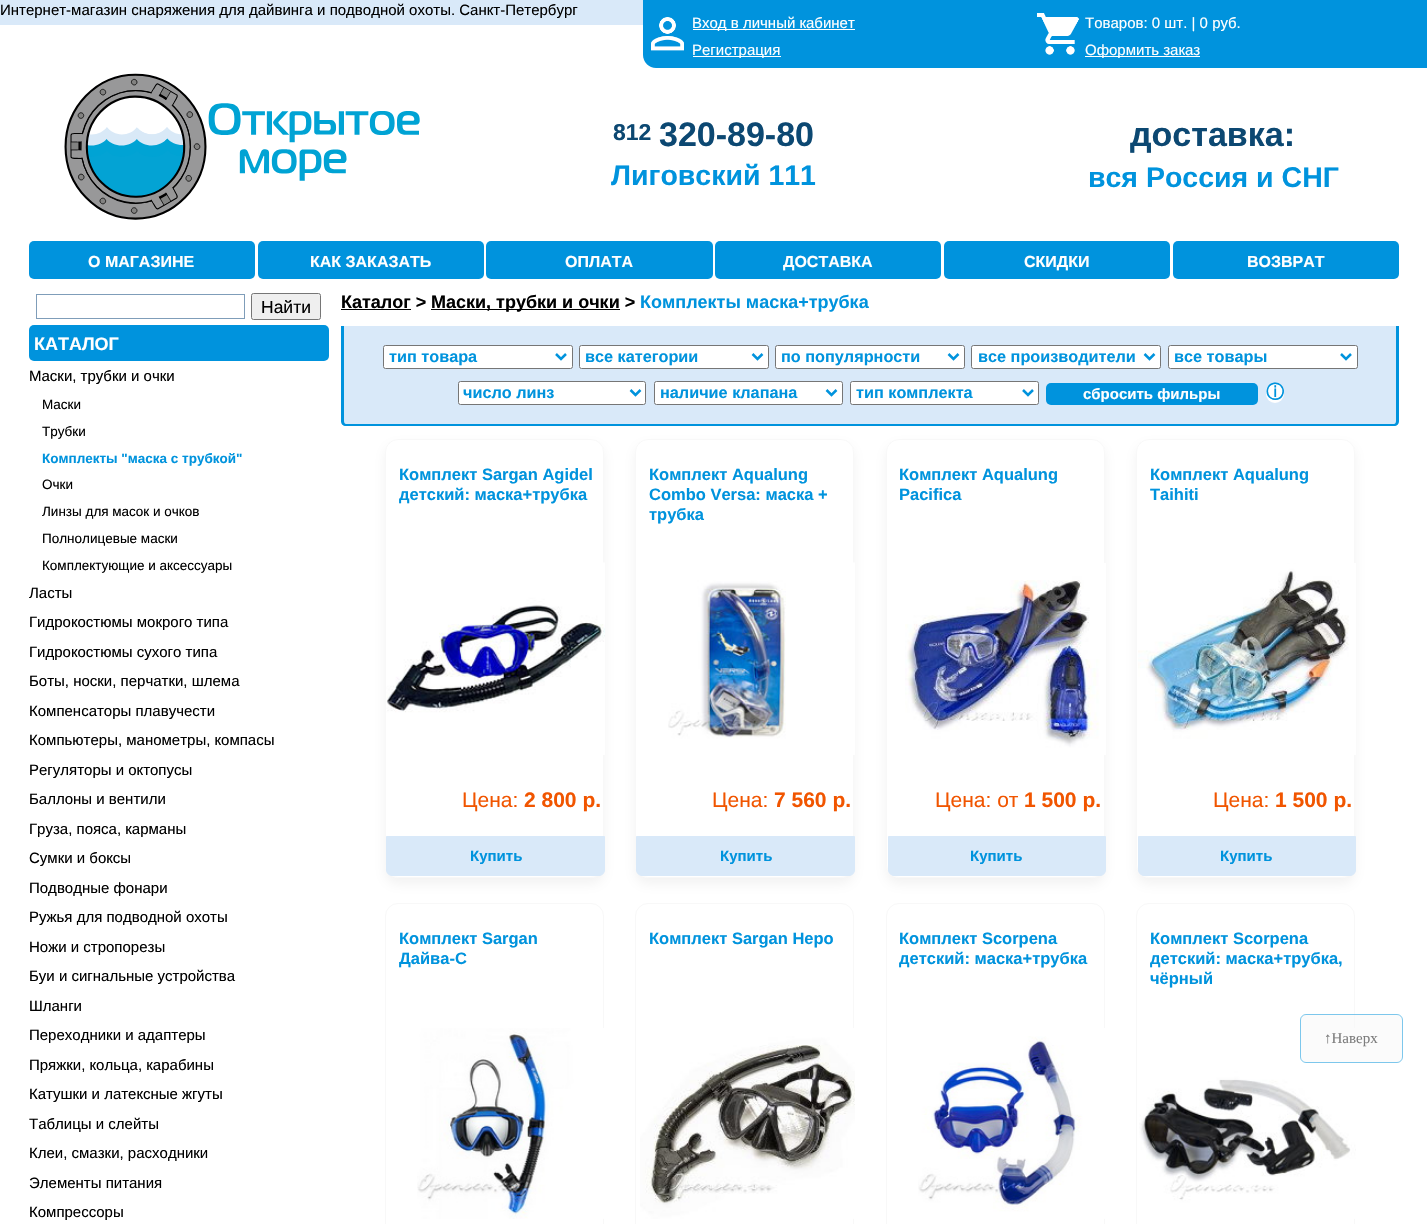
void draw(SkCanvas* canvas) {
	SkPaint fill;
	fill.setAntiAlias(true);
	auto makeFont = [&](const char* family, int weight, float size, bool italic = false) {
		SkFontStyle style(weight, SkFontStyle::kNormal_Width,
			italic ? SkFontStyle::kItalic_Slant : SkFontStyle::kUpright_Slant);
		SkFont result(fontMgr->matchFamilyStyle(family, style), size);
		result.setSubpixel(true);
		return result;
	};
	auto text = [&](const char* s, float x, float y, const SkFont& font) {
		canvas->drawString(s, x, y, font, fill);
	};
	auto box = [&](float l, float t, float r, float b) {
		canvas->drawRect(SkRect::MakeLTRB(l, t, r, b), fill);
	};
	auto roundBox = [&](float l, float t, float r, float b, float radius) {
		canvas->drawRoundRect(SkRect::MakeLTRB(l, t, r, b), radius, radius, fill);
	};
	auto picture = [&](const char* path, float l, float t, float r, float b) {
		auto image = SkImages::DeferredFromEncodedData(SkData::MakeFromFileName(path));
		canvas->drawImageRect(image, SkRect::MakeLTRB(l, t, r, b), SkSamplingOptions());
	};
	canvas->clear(0xFFFFFFFF);
	fill.setColor(0xFFD9E9F9);
	box(0, 0, 643, 25);
	fill.setColor(0xFF0093DD);
	canvas->drawPath(SkPathBuilder().moveTo(643, 0).lineTo(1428, 0).lineTo(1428, 68).lineTo(656, 68).cubicTo(649, 68, 643, 62, 643, 55).close().detach(), fill);
	picture("image0.png", 651, 17, 684, 51);
	fill.setColor(0xFFFFFFFF);
	box(693, 29, 855, 30);
	box(693, 56, 781, 57);
	picture("image1.png", 1037, 13, 1079, 55);
	box(1085, 56, 1200, 57);
	picture("image2.png", 64, 73, 420, 220);
	fill.setColor(0xFF0093DD);
	roundBox(29, 241, 255, 279, 5);
	roundBox(258, 241, 484, 279, 5);
	roundBox(486, 241, 713, 279, 5);
	roundBox(715, 241, 941, 279, 5);
	roundBox(944, 241, 1170, 279, 5);
	roundBox(1173, 241, 1399, 279, 5);
	fill.setStyle(SkPaint::kStroke_Style);
	fill.setStrokeWidth(1);
	fill.setColor(0xFF7F9DB9);
	canvas->drawRect(SkRect::MakeLTRB(36.5f, 294.5f, 244.5f, 318.5f), fill);
	fill.setStyle(SkPaint::kFill_Style);
	fill.setColor(0xFFEFEFEF);
	canvas->drawRoundRect(SkRect::MakeLTRB(251.5f, 293.5f, 320.5f, 319.5f), 2, 2, fill);
	fill.setStyle(SkPaint::kStroke_Style);
	fill.setColor(0xFF767676);
	canvas->drawRoundRect(SkRect::MakeLTRB(251.5f, 293.5f, 320.5f, 319.5f), 2, 2, fill);
	fill.setStyle(SkPaint::kFill_Style);
	fill.setColor(0xFF0093DD);
	roundBox(29, 325, 329, 361, 5);
	fill.setColor(0xFF000000);
	box(341, 309, 411, 310);
	box(431, 309, 620, 310);
	fill.setColor(0xFFD9E9F9);
	canvas->drawPath(SkPathBuilder().moveTo(341, 326).lineTo(1399, 326).lineTo(1399, 421).cubicTo(1399, 424, 1397, 426, 1394, 426).lineTo(346, 426).cubicTo(343, 426, 341, 424, 341, 421).close().detach(), fill);
	fill.setColor(0xFF0093DD);
	canvas->drawPath(SkPathBuilder(SkPathFillType::kEvenOdd).moveTo(341, 326).lineTo(1399, 326).lineTo(1399, 421).cubicTo(1399, 424, 1397, 426, 1394, 426).lineTo(346, 426).cubicTo(343, 426, 341, 424, 341, 421).close().moveTo(344, 326).lineTo(1396, 326).lineTo(1396, 421).cubicTo(1396, 423, 1395, 424, 1394, 424).lineTo(346, 424).cubicTo(345, 424, 344, 423, 344, 421).close().detach(), fill);
	fill.setColor(0xFFFFFFFF);
	canvas->drawRoundRect(SkRect::MakeLTRB(383.5f, 345.5f, 572.5f, 368.5f), 2, 2, fill);
	fill.setStyle(SkPaint::kStroke_Style);
	fill.setColor(0xFF767676);
	canvas->drawRoundRect(SkRect::MakeLTRB(383.5f, 345.5f, 572.5f, 368.5f), 2, 2, fill);
	fill.setStrokeWidth(2.5f);
	fill.setColor(0xFF0093DD);
	canvas->drawPath(SkPathBuilder().moveTo(556, 354).lineTo(561, 359).lineTo(566, 354).detach(), fill);
	fill.setStyle(SkPaint::kFill_Style);
	fill.setColor(0xFFFFFFFF);
	canvas->drawRoundRect(SkRect::MakeLTRB(579.5f, 345.5f, 768.5f, 368.5f), 2, 2, fill);
	fill.setStyle(SkPaint::kStroke_Style);
	fill.setStrokeWidth(1);
	fill.setColor(0xFF767676);
	canvas->drawRoundRect(SkRect::MakeLTRB(579.5f, 345.5f, 768.5f, 368.5f), 2, 2, fill);
	fill.setStrokeWidth(2.5f);
	fill.setColor(0xFF0093DD);
	canvas->drawPath(SkPathBuilder().moveTo(752.5f, 354).lineTo(757.5f, 359).lineTo(762.5f, 354).detach(), fill);
	fill.setStyle(SkPaint::kFill_Style);
	fill.setColor(0xFFFFFFFF);
	canvas->drawRoundRect(SkRect::MakeLTRB(775.5f, 345.5f, 964.5f, 368.5f), 2, 2, fill);
	fill.setStyle(SkPaint::kStroke_Style);
	fill.setStrokeWidth(1);
	fill.setColor(0xFF767676);
	canvas->drawRoundRect(SkRect::MakeLTRB(775.5f, 345.5f, 964.5f, 368.5f), 2, 2, fill);
	fill.setStrokeWidth(2.5f);
	fill.setColor(0xFF0093DD);
	canvas->drawPath(SkPathBuilder().moveTo(948.5f, 354).lineTo(953.5f, 359).lineTo(958.5f, 354).detach(), fill);
	fill.setStyle(SkPaint::kFill_Style);
	fill.setColor(0xFFFFFFFF);
	canvas->drawRoundRect(SkRect::MakeLTRB(971.5f, 345.5f, 1160.5f, 368.5f), 2, 2, fill);
	fill.setStyle(SkPaint::kStroke_Style);
	fill.setStrokeWidth(1);
	fill.setColor(0xFF767676);
	canvas->drawRoundRect(SkRect::MakeLTRB(971.5f, 345.5f, 1160.5f, 368.5f), 2, 2, fill);
	fill.setStrokeWidth(2.5f);
	fill.setColor(0xFF0093DD);
	canvas->drawPath(SkPathBuilder().moveTo(1144.5f, 354).lineTo(1149.5f, 359).lineTo(1154.5f, 354).detach(), fill);
	fill.setStyle(SkPaint::kFill_Style);
	fill.setColor(0xFFFFFFFF);
	canvas->drawRoundRect(SkRect::MakeLTRB(1168.5f, 345.5f, 1357.5f, 368.5f), 2, 2, fill);
	fill.setStyle(SkPaint::kStroke_Style);
	fill.setStrokeWidth(1);
	fill.setColor(0xFF767676);
	canvas->drawRoundRect(SkRect::MakeLTRB(1168.5f, 345.5f, 1357.5f, 368.5f), 2, 2, fill);
	fill.setStrokeWidth(2.5f);
	fill.setColor(0xFF0093DD);
	canvas->drawPath(SkPathBuilder().moveTo(1341, 354).lineTo(1346, 359).lineTo(1351, 354).detach(), fill);
	fill.setStyle(SkPaint::kFill_Style);
	fill.setColor(0xFFFFFFFF);
	canvas->drawRoundRect(SkRect::MakeLTRB(458.5f, 381.5f, 645.5f, 404.5f), 2, 2, fill);
	fill.setStyle(SkPaint::kStroke_Style);
	fill.setStrokeWidth(1);
	fill.setColor(0xFF767676);
	canvas->drawRoundRect(SkRect::MakeLTRB(458.5f, 381.5f, 645.5f, 404.5f), 2, 2, fill);
	fill.setStrokeWidth(2.5f);
	fill.setColor(0xFF0093DD);
	canvas->drawPath(SkPathBuilder().moveTo(630.5f, 390).lineTo(635.5f, 395).lineTo(640.5f, 390).detach(), fill);
	fill.setStyle(SkPaint::kFill_Style);
	fill.setColor(0xFFFFFFFF);
	canvas->drawRoundRect(SkRect::MakeLTRB(654.5f, 381.5f, 842.5f, 404.5f), 2, 2, fill);
	fill.setStyle(SkPaint::kStroke_Style);
	fill.setStrokeWidth(1);
	fill.setColor(0xFF767676);
	canvas->drawRoundRect(SkRect::MakeLTRB(654.5f, 381.5f, 842.5f, 404.5f), 2, 2, fill);
	fill.setStrokeWidth(2.5f);
	fill.setColor(0xFF0093DD);
	canvas->drawPath(SkPathBuilder().moveTo(826.5f, 390).lineTo(831.5f, 395).lineTo(836.5f, 390).detach(), fill);
	fill.setStyle(SkPaint::kFill_Style);
	fill.setColor(0xFFFFFFFF);
	canvas->drawRoundRect(SkRect::MakeLTRB(850.5f, 381.5f, 1038.5f, 404.5f), 2, 2, fill);
	fill.setStyle(SkPaint::kStroke_Style);
	fill.setStrokeWidth(1);
	fill.setColor(0xFF767676);
	canvas->drawRoundRect(SkRect::MakeLTRB(850.5f, 381.5f, 1038.5f, 404.5f), 2, 2, fill);
	fill.setStrokeWidth(2.5f);
	fill.setColor(0xFF0093DD);
	canvas->drawPath(SkPathBuilder().moveTo(1023, 390).lineTo(1028, 395).lineTo(1033, 390).detach(), fill);
	fill.setStyle(SkPaint::kFill_Style);
	roundBox(1046, 383, 1258, 405, 5);
	fill.setColor(0xFFFFFFFF);
	roundBox(1266, 383, 1284, 403, 9);
	canvas->save();
	canvas->clipPath(SkPathBuilder(SkPathFillType::kEvenOdd).moveTo(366, 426).lineTo(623, 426).lineTo(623, 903).lineTo(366, 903).close().moveTo(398, 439).lineTo(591, 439).cubicTo(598, 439, 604, 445, 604, 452).lineTo(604, 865).cubicTo(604, 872, 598, 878, 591, 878).lineTo(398, 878).cubicTo(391, 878, 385, 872, 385, 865).lineTo(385, 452).cubicTo(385, 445, 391, 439, 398, 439).close().detach(), true);
	fill.setColor(0x1A7B7B7B);
	fill.setMaskFilter(SkMaskFilter::MakeBlur(kNormal_SkBlurStyle, 6));
	canvas->drawRoundRect(SkRect::MakeLTRB(385, 445, 604, 884), 13, 13, fill);
	fill.setMaskFilter(nullptr);
	canvas->restore();
	fill.setStyle(SkPaint::kStroke_Style);
	fill.setStrokeWidth(1);
	fill.setColor(0x2ED9D9D9);
	canvas->drawRoundRect(SkRect::MakeLTRB(385.5f, 439.5f, 603.5f, 877.5f), 12.5f, 12.5f, fill);
	picture("image3.png", 386, 562, 605, 755);
	fill.setStyle(SkPaint::kFill_Style);
	fill.setColor(0xFFD9E9F9);
	canvas->drawPath(SkPathBuilder().moveTo(386.5f, 836.5f).lineTo(604.5f, 836.5f).lineTo(604.5f, 870).cubicTo(604.5f, 873, 602, 875.5f, 599, 875.5f).lineTo(392, 875.5f).cubicTo(389, 875.5f, 386.5f, 873, 386.5f, 870).close().detach(), fill);
	fill.setStyle(SkPaint::kStroke_Style);
	canvas->drawPath(SkPathBuilder().moveTo(386.5f, 836.5f).lineTo(604.5f, 836.5f).lineTo(604.5f, 870).cubicTo(604.5f, 873, 602, 875.5f, 599, 875.5f).lineTo(392, 875.5f).cubicTo(389, 875.5f, 386.5f, 873, 386.5f, 870).close().detach(), fill);
	canvas->save();
	canvas->clipPath(SkPathBuilder(SkPathFillType::kEvenOdd).moveTo(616, 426).lineTo(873, 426).lineTo(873, 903).lineTo(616, 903).close().moveTo(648, 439).lineTo(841, 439).cubicTo(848, 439, 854, 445, 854, 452).lineTo(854, 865).cubicTo(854, 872, 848, 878, 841, 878).lineTo(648, 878).cubicTo(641, 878, 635, 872, 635, 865).lineTo(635, 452).cubicTo(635, 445, 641, 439, 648, 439).close().detach(), true);
	fill.setStyle(SkPaint::kFill_Style);
	fill.setColor(0x1A7B7B7B);
	fill.setMaskFilter(SkMaskFilter::MakeBlur(kNormal_SkBlurStyle, 6));
	canvas->drawRoundRect(SkRect::MakeLTRB(635, 445, 854, 884), 13, 13, fill);
	fill.setMaskFilter(nullptr);
	canvas->restore();
	fill.setStyle(SkPaint::kStroke_Style);
	fill.setColor(0x2ED9D9D9);
	canvas->drawRoundRect(SkRect::MakeLTRB(635.5f, 439.5f, 853.5f, 877.5f), 12.5f, 12.5f, fill);
	picture("image4.png", 668, 562, 855, 755);
	fill.setStyle(SkPaint::kFill_Style);
	fill.setColor(0xFFD9E9F9);
	canvas->drawPath(SkPathBuilder().moveTo(636.5f, 836.5f).lineTo(854.5f, 836.5f).lineTo(854.5f, 870).cubicTo(854.5f, 873, 852, 875.5f, 849, 875.5f).lineTo(642, 875.5f).cubicTo(639, 875.5f, 636.5f, 873, 636.5f, 870).close().detach(), fill);
	fill.setStyle(SkPaint::kStroke_Style);
	canvas->drawPath(SkPathBuilder().moveTo(636.5f, 836.5f).lineTo(854.5f, 836.5f).lineTo(854.5f, 870).cubicTo(854.5f, 873, 852, 875.5f, 849, 875.5f).lineTo(642, 875.5f).cubicTo(639, 875.5f, 636.5f, 873, 636.5f, 870).close().detach(), fill);
	canvas->save();
	canvas->clipPath(SkPathBuilder(SkPathFillType::kEvenOdd).moveTo(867, 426).lineTo(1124, 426).lineTo(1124, 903).lineTo(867, 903).close().moveTo(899, 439).lineTo(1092, 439).cubicTo(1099, 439, 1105, 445, 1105, 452).lineTo(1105, 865).cubicTo(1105, 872, 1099, 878, 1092, 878).lineTo(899, 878).cubicTo(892, 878, 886, 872, 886, 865).lineTo(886, 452).cubicTo(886, 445, 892, 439, 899, 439).close().detach(), true);
	fill.setStyle(SkPaint::kFill_Style);
	fill.setColor(0x1A7B7B7B);
	fill.setMaskFilter(SkMaskFilter::MakeBlur(kNormal_SkBlurStyle, 6));
	canvas->drawRoundRect(SkRect::MakeLTRB(886, 445, 1105, 884), 13, 13, fill);
	fill.setMaskFilter(nullptr);
	canvas->restore();
	fill.setStyle(SkPaint::kStroke_Style);
	fill.setColor(0x2ED9D9D9);
	canvas->drawRoundRect(SkRect::MakeLTRB(886.5f, 439.5f, 1104.5f, 877.5f), 12.5f, 12.5f, fill);
	picture("image5.png", 905, 563, 1106, 755);
	fill.setStyle(SkPaint::kFill_Style);
	fill.setColor(0xFFD9E9F9);
	canvas->drawPath(SkPathBuilder().moveTo(888.5f, 836.5f).lineTo(1105.5f, 836.5f).lineTo(1105.5f, 870).cubicTo(1105.5f, 873, 1103, 875.5f, 1100, 875.5f).lineTo(894, 875.5f).cubicTo(891, 875.5f, 888.5f, 873, 888.5f, 870).close().detach(), fill);
	fill.setStyle(SkPaint::kStroke_Style);
	canvas->drawPath(SkPathBuilder().moveTo(888.5f, 836.5f).lineTo(1105.5f, 836.5f).lineTo(1105.5f, 870).cubicTo(1105.5f, 873, 1103, 875.5f, 1100, 875.5f).lineTo(894, 875.5f).cubicTo(891, 875.5f, 888.5f, 873, 888.5f, 870).close().detach(), fill);
	canvas->save();
	canvas->clipPath(SkPathBuilder(SkPathFillType::kEvenOdd).moveTo(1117, 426).lineTo(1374, 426).lineTo(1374, 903).lineTo(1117, 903).close().moveTo(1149, 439).lineTo(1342, 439).cubicTo(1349, 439, 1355, 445, 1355, 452).lineTo(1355, 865).cubicTo(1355, 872, 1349, 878, 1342, 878).lineTo(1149, 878).cubicTo(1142, 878, 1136, 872, 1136, 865).lineTo(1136, 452).cubicTo(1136, 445, 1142, 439, 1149, 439).close().detach(), true);
	fill.setStyle(SkPaint::kFill_Style);
	fill.setColor(0x1A7B7B7B);
	fill.setMaskFilter(SkMaskFilter::MakeBlur(kNormal_SkBlurStyle, 6));
	canvas->drawRoundRect(SkRect::MakeLTRB(1136, 445, 1355, 884), 13, 13, fill);
	fill.setMaskFilter(nullptr);
	canvas->restore();
	fill.setStyle(SkPaint::kStroke_Style);
	fill.setColor(0x2ED9D9D9);
	canvas->drawRoundRect(SkRect::MakeLTRB(1136.5f, 439.5f, 1354.5f, 877.5f), 12.5f, 12.5f, fill);
	picture("image6.png", 1138, 563, 1356, 755);
	fill.setStyle(SkPaint::kFill_Style);
	fill.setColor(0xFFD9E9F9);
	canvas->drawPath(SkPathBuilder().moveTo(1138.5f, 836.5f).lineTo(1355.5f, 836.5f).lineTo(1355.5f, 870).cubicTo(1355.5f, 873, 1353, 875.5f, 1350, 875.5f).lineTo(1144, 875.5f).cubicTo(1141, 875.5f, 1138.5f, 873, 1138.5f, 870).close().detach(), fill);
	fill.setStyle(SkPaint::kStroke_Style);
	canvas->drawPath(SkPathBuilder().moveTo(1138.5f, 836.5f).lineTo(1355.5f, 836.5f).lineTo(1355.5f, 870).cubicTo(1355.5f, 873, 1353, 875.5f, 1350, 875.5f).lineTo(1144, 875.5f).cubicTo(1141, 875.5f, 1138.5f, 873, 1138.5f, 870).close().detach(), fill);
	fill.setColor(0xFFF8F8F8);
	canvas->drawRoundRect(SkRect::MakeLTRB(385.5f, 903.5f, 603.5f, 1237.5f), 12.5f, 12.5f, fill);
	picture("image7.png", 417, 1028, 605, 1219);
	canvas->drawRoundRect(SkRect::MakeLTRB(635.5f, 903.5f, 853.5f, 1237.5f), 12.5f, 12.5f, fill);
	picture("image8.png", 640, 1028, 855, 1219);
	canvas->drawRoundRect(SkRect::MakeLTRB(886.5f, 903.5f, 1104.5f, 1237.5f), 12.5f, 12.5f, fill);
	picture("image9.png", 918, 1028, 1106, 1219);
	canvas->drawRoundRect(SkRect::MakeLTRB(1136.5f, 903.5f, 1354.5f, 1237.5f), 12.5f, 12.5f, fill);
	picture("image10.png", 1139, 1028, 1356, 1219);
	fill.setStyle(SkPaint::kFill_Style);
	fill.setColor(0x80F7F7F7);
	roundBox(1300, 1014, 1403, 1063, 6);
	fill.setStyle(SkPaint::kStroke_Style);
	fill.setColor(0x800093DD);
	canvas->drawRoundRect(SkRect::MakeLTRB(1300.5f, 1014.5f, 1402.5f, 1062.5f), 5.5f, 5.5f, fill);
	auto font1 = makeFont("Liberation Sans", 400, 15);
	fill.setStyle(SkPaint::kFill_Style);
	fill.setColor(0xFF000000);
	text("Интернет-магазин снаряжения для дайвинга и подводной охоты. Санкт-Петербург", 0, 15, font1);
	fill.setColor(0xFFFFFFFF);
	text("Вход в личный кабинет", 692, 28, font1);
	text("Регистрация", 692, 55, font1);
	text("Товаров: 0 шт. | 0 руб.", 1085, 28, font1);
	text("Оформить заказ", 1085, 55, font1);
	auto font2 = makeFont("Liberation Sans", 700, 23);
	fill.setColor(0xFF0C4872);
	text("812", 613, 140, font2);
	auto font3 = makeFont("Liberation Sans", 700, 34);
	text("320-89-80", 659, 146, font3);
	auto font4 = makeFont("Liberation Sans", 700, 28.5f);
	fill.setColor(0xFF0093DD);
	text("Лиговский 111", 611, 185, font4);
	fill.setColor(0xFF0C4872);
	text("доставка:", 1130, 146, font3);
	fill.setColor(0xFF0093DD);
	text("вся Россия и СНГ", 1088, 187, font4);
	auto font5 = makeFont("Liberation Sans", 700, 16);
	fill.setColor(0xFFFFFFFF);
	text("О МАГАЗИНЕ", 88, 267, font5);
	text("КАК ЗАКАЗАТЬ", 310, 267, font5);
	text("ОПЛАТА", 565, 267, font5);
	text("ДОСТАВКА", 783, 267, font5);
	text("СКИДКИ", 1024, 267, font5);
	text("ВОЗВРАТ", 1247, 267, font5);
	auto font6 = makeFont("Liberation Sans", 400, 17.5f);
	fill.setColor(0xFF000000);
	text("Найти", 261, 313, font6);
	auto font7 = makeFont("Liberation Sans", 700, 18);
	fill.setColor(0xFFFFFFFF);
	text("КАТАЛОГ", 34, 350, font7);
	fill.setColor(0xFF000000);
	text("Маски, трубки и очки", 29, 381, font1);
	auto font8 = makeFont("Liberation Sans", 400, 13.5f);
	text("Маски", 42, 409, font8);
	text("Трубки", 42, 436, font8);
	auto font9 = makeFont("Liberation Sans", 700, 13.5f);
	fill.setColor(0xFF0093DD);
	text("Комплекты \"маска с трубкой\"", 42, 463, font9);
	fill.setColor(0xFF000000);
	text("Очки", 42, 489, font8);
	text("Линзы для масок и очков", 42, 516, font8);
	text("Полнолицевые маски", 42, 543, font8);
	text("Комплектующие и аксессуары", 42, 570, font8);
	text("Ласты", 29, 598, font1);
	text("Гидрокостюмы мокрого типа", 29, 627, font1);
	text("Гидрокостюмы сухого типа", 29, 657, font1);
	text("Боты, носки, перчатки, шлема", 29, 686, font1);
	text("Компенсаторы плавучести", 29, 716, font1);
	text("Компьютеры, манометры, компасы", 29, 745, font1);
	text("Регуляторы и октопусы", 29, 775, font1);
	text("Баллоны и вентили", 29, 804, font1);
	text("Груза, пояса, карманы", 29, 834, font1);
	text("Сумки и боксы", 29, 863, font1);
	text("Подводные фонари", 29, 893, font1);
	text("Ружья для подводной охоты", 29, 922, font1);
	text("Ножи и стропорезы", 29, 952, font1);
	text("Буи и сигнальные устройства", 29, 981, font1);
	text("Шланги", 29, 1011, font1);
	text("Переходники и адаптеры", 29, 1040, font1);
	text("Пряжки, кольца, карабины", 29, 1070, font1);
	text("Катушки и латексные жгуты", 29, 1099, font1);
	text("Таблицы и слейты", 29, 1129, font1);
	text("Клеи, смазки, расходники", 29, 1158, font1);
	text("Элементы питания", 29, 1188, font1);
	text("Компрессоры", 29, 1217, font1);
	text("Каталог >", 341, 308, font7);
	text("Маски, трубки и очки >", 431, 308, font7);
	fill.setColor(0xFF0093DD);
	text("Комплекты маска+трубка", 640, 308, font7);
	auto font10 = makeFont("Liberation Sans", 700, 16.25f);
	text("тип товара", 389, 362, font10);
	text("все категории", 585, 362, font10);
	text("по популярности", 781, 362, font10);
	text("все производители", 978, 362, font10);
	text("все товары", 1174, 362, font10);
	text("число линз", 463, 398, font10);
	text("наличие клапана", 660, 398, font10);
	text("тип комплекта", 856, 398, font10);
	auto font11 = makeFont("Liberation Sans", 700, 15);
	fill.setColor(0xFFFFFFFF);
	text("сбросить фильры", 1083, 399, font11);
	auto font12 = makeFont("WenQuanYi Zen Hei", 700, 18);
	fill.setColor(0xFF0093DD);
	text("ⓘ", 1266, 398, font12);
	auto font13 = makeFont("Liberation Sans", 700, 16.5f);
	text("Комплект Sargan Agidel", 399, 480, font13);
	text("детский: маска+трубка", 399, 500, font13);
	auto font14 = makeFont("Liberation Sans", 400, 21);
	fill.setColor(0xFFF15500);
	text("Цена:", 462, 807, font14);
	auto font15 = makeFont("Liberation Sans", 700, 21);
	text("2 800 р.", 524, 807, font15);
	fill.setColor(0xFF0093DD);
	text("Купить", 470, 861, font11);
	text("Комплект Aqualung", 649, 480, font13);
	text("Combo Versa: маска +", 649, 500, font13);
	text("трубка", 649, 520, font13);
	fill.setColor(0xFFF15500);
	text("Цена:", 712, 807, font14);
	text("7 560 р.", 774, 807, font15);
	fill.setColor(0xFF0093DD);
	text("Купить", 720, 861, font11);
	text("Комплект Aqualung", 899, 480, font13);
	text("Pacifica", 899, 500, font13);
	fill.setColor(0xFFF15500);
	text("Цена: от", 935, 807, font14);
	text("1 500 р.", 1024, 807, font15);
	fill.setColor(0xFF0093DD);
	text("Купить", 970, 861, font11);
	text("Комплект Aqualung", 1150, 480, font13);
	text("Taihiti", 1150, 500, font13);
	fill.setColor(0xFFF15500);
	text("Цена:", 1213, 807, font14);
	text("1 500 р.", 1275, 807, font15);
	fill.setColor(0xFF0093DD);
	text("Купить", 1220, 861, font11);
	text("Комплект Sargan", 399, 944, font13);
	text("Дайва-С", 399, 964, font13);
	text("Комплект Sargan Неро", 649, 944, font13);
	text("Комплект Scorpena", 899, 944, font13);
	text("детский: маска+трубка", 899, 964, font13);
	text("Комплект Scorpena", 1150, 944, font13);
	text("детский: маска+трубка,", 1150, 964, font13);
	text("чёрный", 1150, 984, font13);
	auto font16 = makeFont("Liberation Serif", 400, 15);
	fill.setColor(0xFF7D7D7D);
	text("↑Наверх", 1324, 1043, font16);
}
